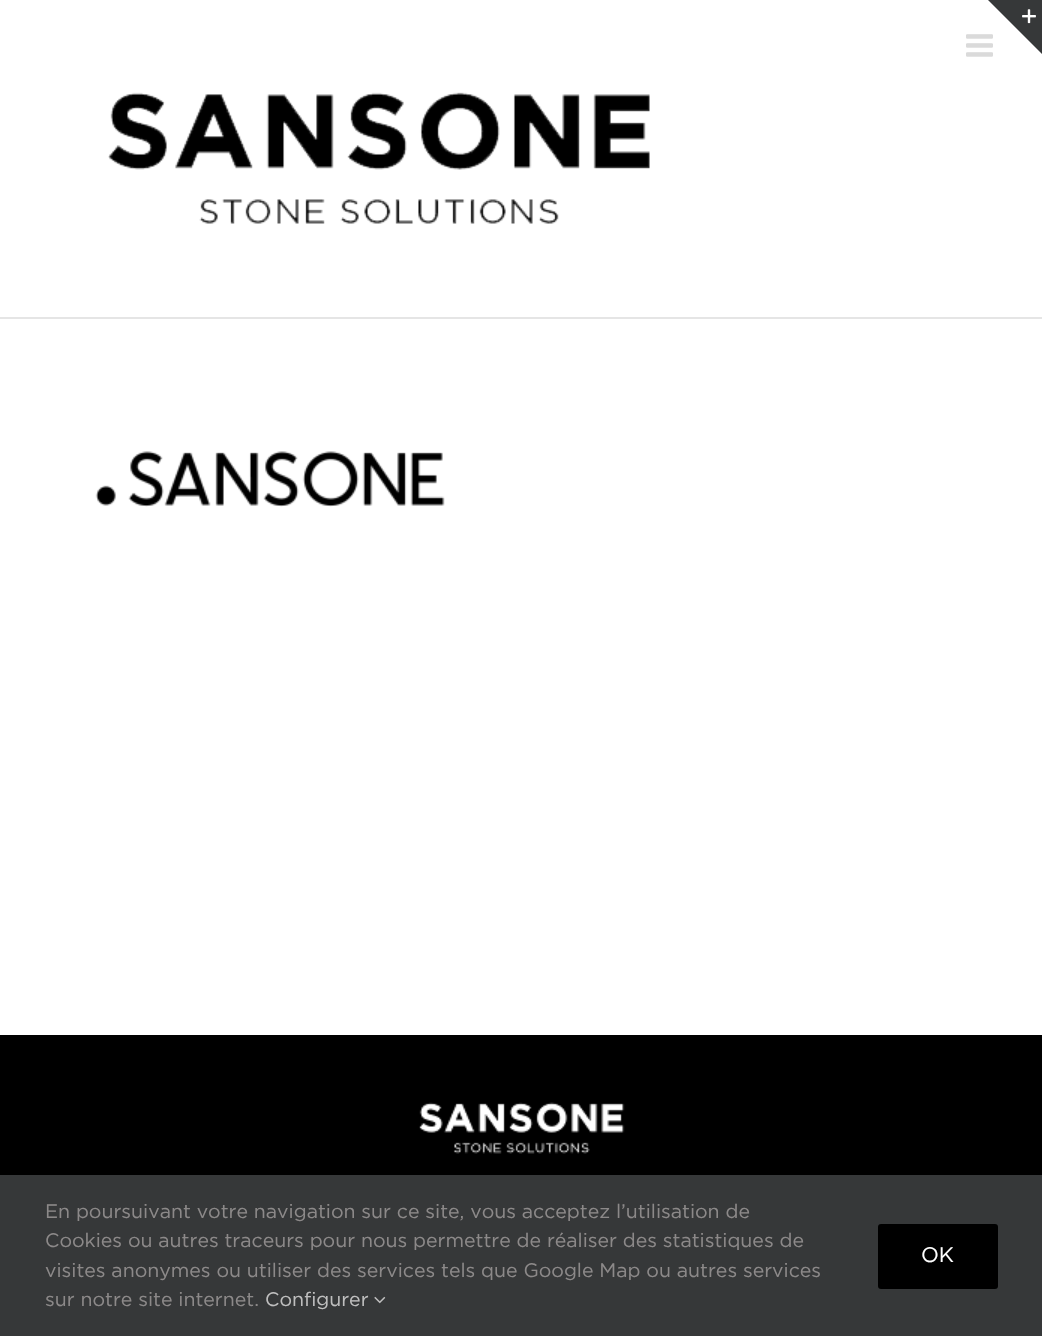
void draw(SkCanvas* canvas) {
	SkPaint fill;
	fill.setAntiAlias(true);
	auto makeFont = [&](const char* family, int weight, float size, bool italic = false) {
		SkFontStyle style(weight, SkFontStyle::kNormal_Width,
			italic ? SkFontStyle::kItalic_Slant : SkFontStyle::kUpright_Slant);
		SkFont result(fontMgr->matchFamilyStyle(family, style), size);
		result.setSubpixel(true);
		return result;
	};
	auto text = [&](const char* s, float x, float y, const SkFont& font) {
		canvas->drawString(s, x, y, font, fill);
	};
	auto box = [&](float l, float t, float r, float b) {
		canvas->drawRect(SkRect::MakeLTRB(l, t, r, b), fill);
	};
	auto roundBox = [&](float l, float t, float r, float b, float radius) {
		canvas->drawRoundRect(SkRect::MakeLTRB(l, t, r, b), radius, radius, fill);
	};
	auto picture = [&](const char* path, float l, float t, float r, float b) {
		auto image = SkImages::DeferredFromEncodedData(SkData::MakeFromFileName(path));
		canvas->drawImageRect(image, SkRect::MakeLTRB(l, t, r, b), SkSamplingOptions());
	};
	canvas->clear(0xFFFFFFFF);
	picture("image1.png", 966, 34, 993, 57);
	fill.setColor(0xFF363839);
	canvas->drawPath(SkPathBuilder().moveTo(988, 0).lineTo(1042, 0).lineTo(1042, 54).close().detach(), fill);
	picture("image0.png", 1022, 9, 1036, 24);
	fill.setColor(0xFFE5E5E5);
	box(0, 317, 1042, 319);
	picture("image2.png", 108, 92, 650, 224);
	picture("image3.png", 95, 451, 445, 507);
	fill.setColor(0xFF000000);
	box(0, 1035, 1042, 1175);
	picture("image4.png", 419, 1102, 625, 1154);
	fill.setColor(0xFF363839);
	box(0, 1175, 1042, 1336);
	picture("image5.png", 374, 1296, 386, 1304);
	fill.setColor(0xFF000000);
	roundBox(878, 1224, 998, 1289, 3);
	auto font1 = makeFont("Gotham", 400, 19.5f);
	fill.setColor(0xFF8C8989);
	text("En poursuivant votre navigation sur ce site, vous acceptez l’utilisation de", 45, 1218, font1);
	text("Cookies ou autres traceurs pour nous permettre de réaliser des statistiques de", 45, 1247, font1);
	text("visites anonymes ou utiliser des services tels que Google Map ou autres services", 45, 1277, font1);
	text("sur notre site internet.", 45, 1306, font1);
	fill.setColor(0xFFBFBFBF);
	text("Configurer", 265, 1306, font1);
	auto font2 = makeFont("Gotham", 400, 21);
	fill.setColor(0xFFFFFFFF);
	text("OK", 921, 1262, font2);
}
